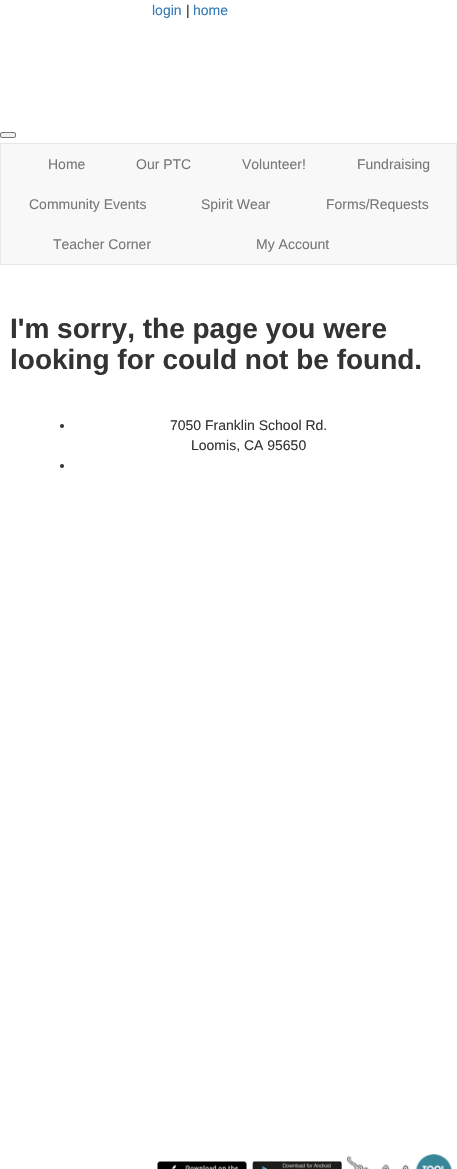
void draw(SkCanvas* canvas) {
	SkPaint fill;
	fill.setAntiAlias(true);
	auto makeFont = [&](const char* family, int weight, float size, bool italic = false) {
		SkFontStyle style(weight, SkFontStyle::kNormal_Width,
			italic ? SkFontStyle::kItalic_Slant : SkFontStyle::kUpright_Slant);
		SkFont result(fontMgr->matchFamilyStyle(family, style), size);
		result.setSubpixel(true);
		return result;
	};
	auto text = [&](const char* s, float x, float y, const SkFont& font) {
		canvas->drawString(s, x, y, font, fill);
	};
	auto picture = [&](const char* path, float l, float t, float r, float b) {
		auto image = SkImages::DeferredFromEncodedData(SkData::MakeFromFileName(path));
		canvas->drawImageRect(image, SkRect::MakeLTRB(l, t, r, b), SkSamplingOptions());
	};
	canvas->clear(0xFFFFFFFF);
	fill.setColor(0xFFEFEFEF);
	canvas->drawRoundRect(SkRect::MakeLTRB(0.5f, 132.5f, 15.5f, 137.5f), 1.5f, 1.5f, fill);
	fill.setStyle(SkPaint::kStroke_Style);
	fill.setStrokeWidth(1);
	fill.setColor(0xFF767676);
	canvas->drawRoundRect(SkRect::MakeLTRB(0.5f, 132.5f, 15.5f, 137.5f), 1.5f, 1.5f, fill);
	fill.setStyle(SkPaint::kFill_Style);
	fill.setColor(0xFFF8F8F8);
	canvas->drawRect(SkRect::MakeLTRB(0.5f, 143.5f, 456.5f, 264.5f), fill);
	fill.setStyle(SkPaint::kStroke_Style);
	fill.setColor(0xFFE7E7E7);
	canvas->drawRect(SkRect::MakeLTRB(0.5f, 143.5f, 456.5f, 264.5f), fill);
	fill.setStyle(SkPaint::kFill_Style);
	fill.setColor(0xFF333333);
	canvas->drawCircle(62, 426, 2, fill);
	canvas->drawCircle(62, 466, 2, fill);
	picture("image0.png", 157, 1161, 247, 1169);
	picture("image1.png", 252, 1161, 342, 1169);
	picture("image2.png", 347, 1154, 452, 1169);
	auto font1 = makeFont("Liberation Sans", 400, 14);
	fill.setColor(0xFF337AB7);
	text("login", 152, 15, font1);
	fill.setColor(0xFF333333);
	text("|", 186, 15, font1);
	fill.setColor(0xFF337AB7);
	text("home", 193, 15, font1);
	fill.setColor(0xFF777777);
	text("Home", 48, 169, font1);
	text("Our PTC", 136, 169, font1);
	text("Volunteer!", 242, 169, font1);
	text("Fundraising", 357, 169, font1);
	text("Community Events", 29, 209, font1);
	text("Spirit Wear", 201, 209, font1);
	text("Forms/Requests", 326, 209, font1);
	text("Teacher Corner", 53, 249, font1);
	text("My Account", 256, 249, font1);
	auto font2 = makeFont("Liberation Sans", 700, 28);
	fill.setColor(0xFF333333);
	text("I'm sorry, the page you were", 10, 338, font2);
	text("looking for could not be found.", 10, 369, font2);
	text("7050 Franklin School Rd.", 170, 430, font1);
	text("Loomis, CA 95650", 191, 450, font1);
}
